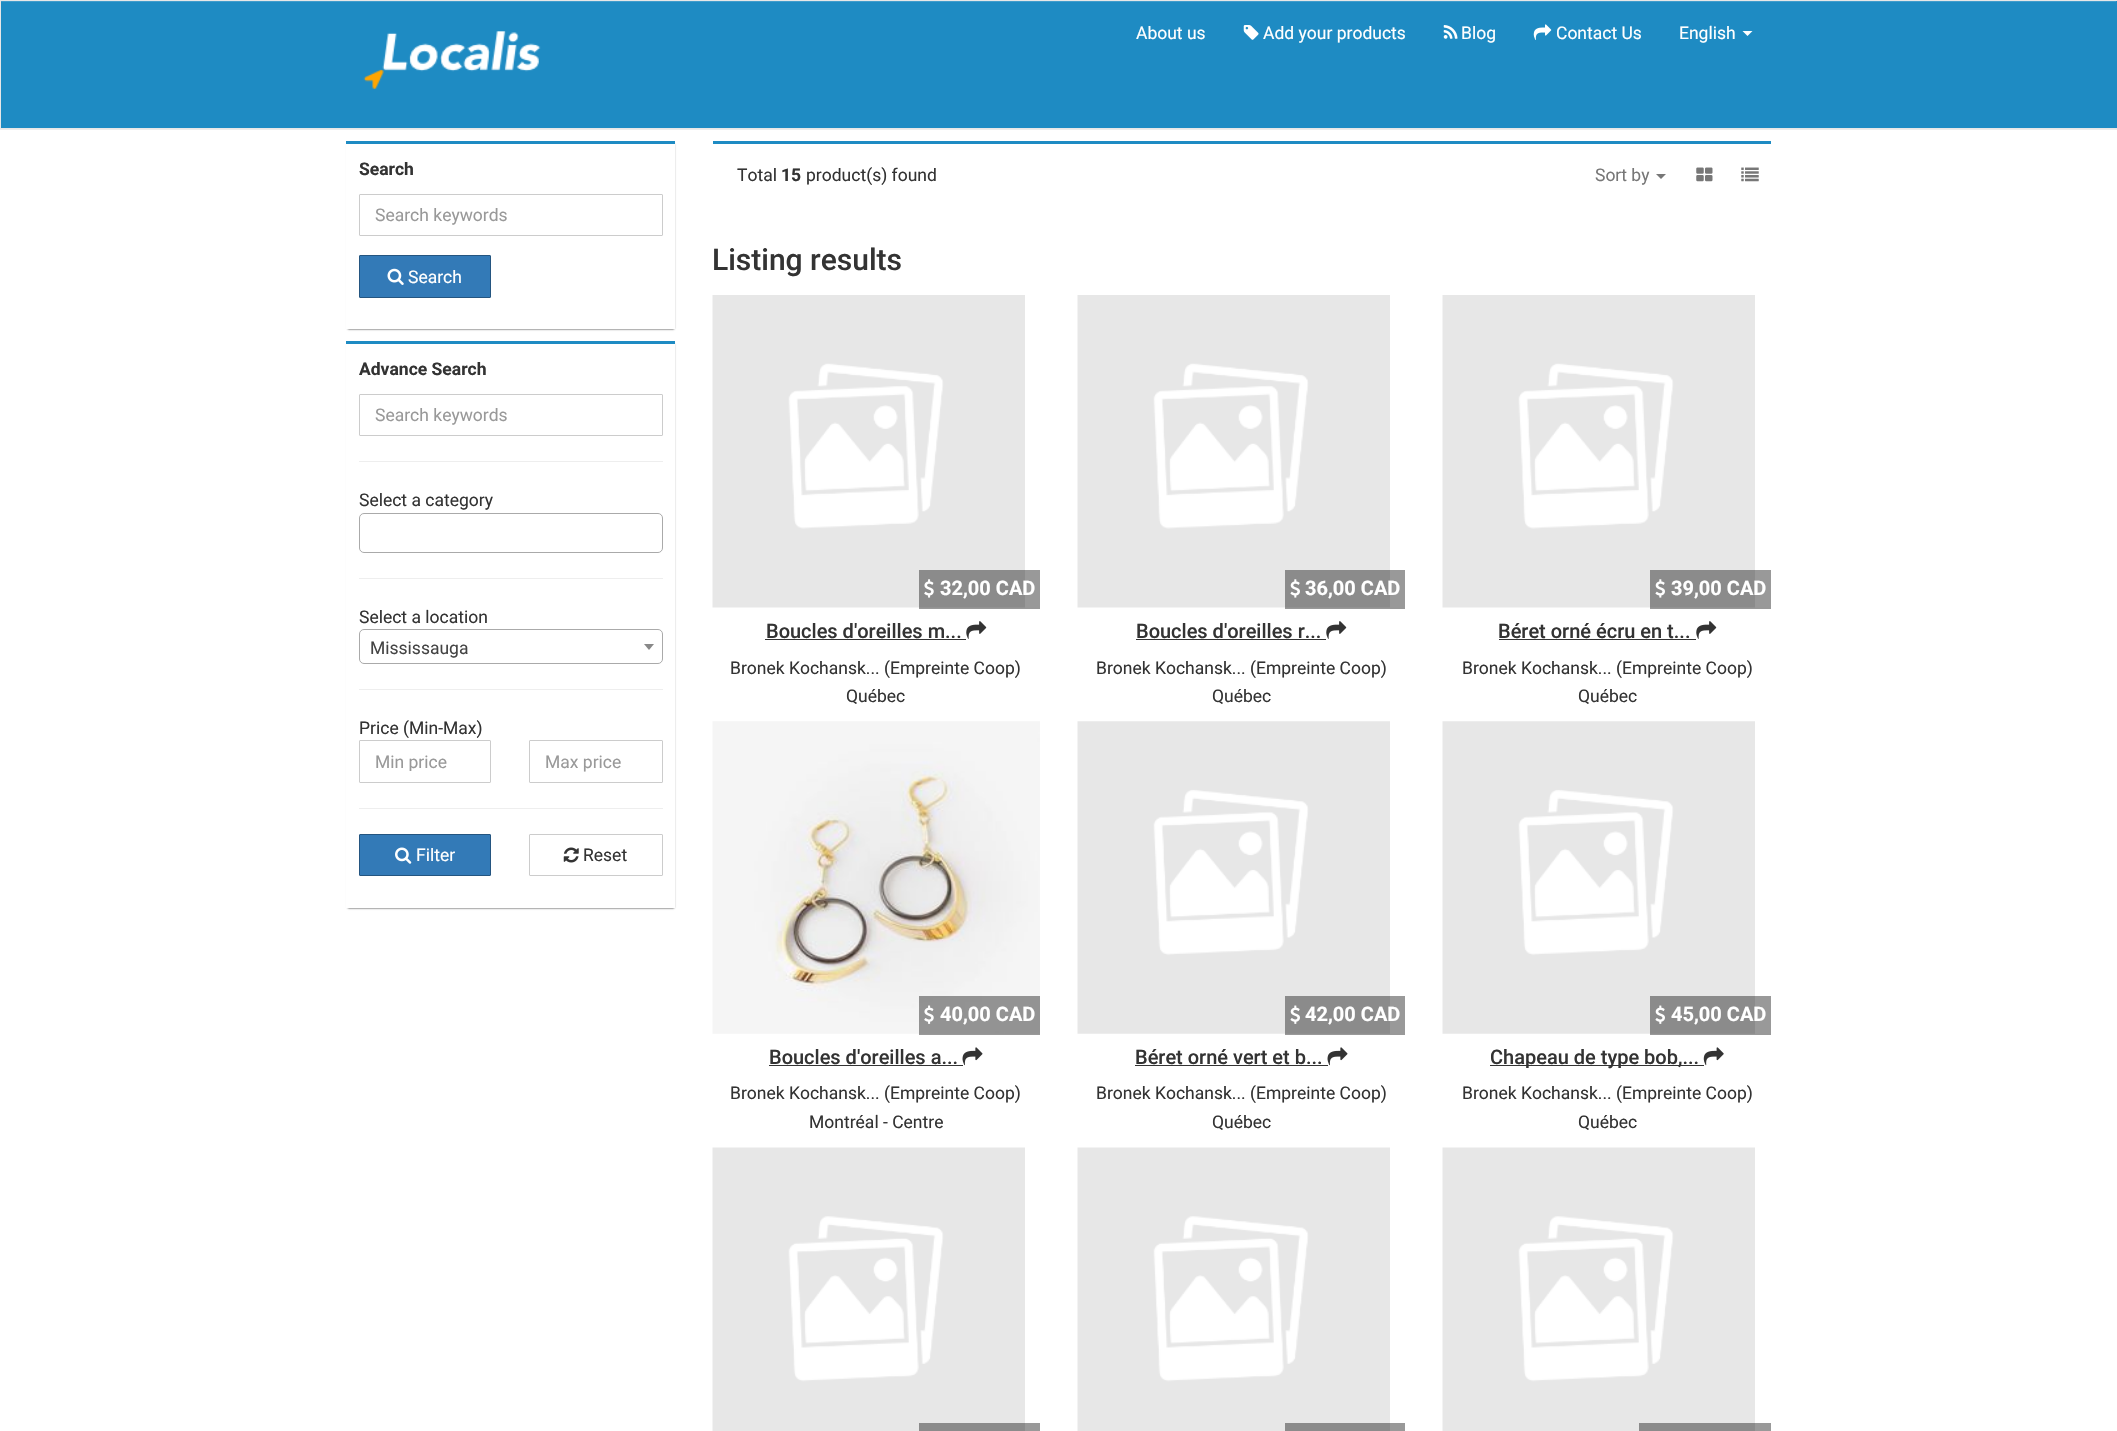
void draw(SkCanvas* canvas) {
	SkPaint fill;
	fill.setAntiAlias(true);
	auto makeFont = [&](const char* family, int weight, float size, bool italic = false) {
		SkFontStyle style(weight, SkFontStyle::kNormal_Width,
			italic ? SkFontStyle::kItalic_Slant : SkFontStyle::kUpright_Slant);
		SkFont result(fontMgr->matchFamilyStyle(family, style), size);
		result.setSubpixel(true);
		return result;
	};
	auto text = [&](const char* s, float x, float y, const SkFont& font) {
		canvas->drawString(s, x, y, font, fill);
	};
	auto box = [&](float l, float t, float r, float b) {
		canvas->drawRect(SkRect::MakeLTRB(l, t, r, b), fill);
	};
	auto picture = [&](const char* path, float l, float t, float r, float b) {
		auto image = SkImages::DeferredFromEncodedData(SkData::MakeFromFileName(path));
		canvas->drawImageRect(image, SkRect::MakeLTRB(l, t, r, b), SkSamplingOptions());
	};
	canvas->clear(0xFFFFFFFF);
	fill.setColor(0xFFECECEC);
	canvas->drawPath(SkPathBuilder().moveTo(0, 129).lineTo(0, 130).lineTo(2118, 130).lineTo(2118, 1).lineTo(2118, 129).close().detach(), fill);
	fill.setColor(0xFF1E8BC3);
	box(1, 1, 2117, 128);
	fill.setColor(0xFF409CCC);
	box(1, 1, 2116, 2);
	fill.setStyle(SkPaint::kStroke_Style);
	fill.setStrokeWidth(1);
	fill.setColor(0xFFE7E7E7);
	canvas->drawRect(SkRect::MakeLTRB(0.5f, 0.5f, 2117.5f, 128.5f), fill);
	picture("image0.png", 363, 31, 541, 89);
	picture("image1.png", 1243, 25, 1259, 40);
	picture("image2.png", 1443, 25, 1458, 39);
	picture("image3.png", 1533, 24, 1552, 40);
	fill.setStyle(SkPaint::kFill_Style);
	fill.setColor(0xFFFFFFFF);
	canvas->drawPath(SkPathBuilder().moveTo(1742.5f, 31).lineTo(1752.5f, 31).lineTo(1747.5f, 36).close().detach(), fill);
	fill.setColor(0x80000000);
	fill.setMaskFilter(SkMaskFilter::MakeBlur(kNormal_SkBlurStyle, 1));
	canvas->drawRect(SkRect::MakeLTRB(348, 144, 674, 329), fill);
	fill.setMaskFilter(nullptr);
	fill.setMaskFilter(SkMaskFilter::MakeBlur(kNormal_SkBlurStyle, 1));
	canvas->drawRect(SkRect::MakeLTRB(348, 144, 674, 329), fill);
	fill.setMaskFilter(nullptr);
	fill.setColor(0xFFFFFFFF);
	box(346, 144, 675, 329);
	fill.setColor(0xFF1E8BC3);
	box(346, 141, 675, 144);
	fill.setStyle(SkPaint::kStroke_Style);
	fill.setColor(0xFFCCCCCC);
	canvas->drawRoundRect(SkRect::MakeLTRB(359.5f, 194.5f, 662.5f, 235.5f), 0.5f, 0.5f, fill);
	fill.setStyle(SkPaint::kFill_Style);
	fill.setColor(0xFF337AB7);
	canvas->drawRoundRect(SkRect::MakeLTRB(359.5f, 255.5f, 490.5f, 297.5f), 0.5f, 0.5f, fill);
	fill.setStyle(SkPaint::kStroke_Style);
	fill.setColor(0xFF245580);
	canvas->drawRoundRect(SkRect::MakeLTRB(359.5f, 255.5f, 490.5f, 297.5f), 0.5f, 0.5f, fill);
	picture("image4.png", 387, 268, 404, 285);
	fill.setStyle(SkPaint::kFill_Style);
	fill.setColor(0x80000000);
	fill.setMaskFilter(SkMaskFilter::MakeBlur(kNormal_SkBlurStyle, 1));
	canvas->drawRect(SkRect::MakeLTRB(348, 344, 674, 908), fill);
	fill.setMaskFilter(nullptr);
	fill.setMaskFilter(SkMaskFilter::MakeBlur(kNormal_SkBlurStyle, 1));
	canvas->drawRect(SkRect::MakeLTRB(348, 344, 674, 908), fill);
	fill.setMaskFilter(nullptr);
	fill.setColor(0xFFFFFFFF);
	box(346, 344, 675, 908);
	fill.setColor(0xFF1E8BC3);
	box(346, 341, 675, 344);
	fill.setStyle(SkPaint::kStroke_Style);
	fill.setColor(0xFFCCCCCC);
	canvas->drawRoundRect(SkRect::MakeLTRB(359.5f, 394.5f, 662.5f, 435.5f), 0.5f, 0.5f, fill);
	fill.setStyle(SkPaint::kFill_Style);
	fill.setColor(0xFFEEEEEE);
	box(359, 461, 663, 462);
	fill.setStyle(SkPaint::kStroke_Style);
	fill.setColor(0xFFAAAAAA);
	canvas->drawRoundRect(SkRect::MakeLTRB(359.5f, 513.5f, 662.5f, 552.5f), 4.5f, 4.5f, fill);
	fill.setStyle(SkPaint::kFill_Style);
	fill.setColor(0xFFEEEEEE);
	box(359, 578, 663, 579);
	fill.setStyle(SkPaint::kStroke_Style);
	fill.setColor(0xFFAAAAAA);
	canvas->drawRoundRect(SkRect::MakeLTRB(359.5f, 629.5f, 662.5f, 663.5f), 4.5f, 4.5f, fill);
	fill.setStyle(SkPaint::kFill_Style);
	fill.setColor(0xFF888888);
	canvas->drawPath(SkPathBuilder().moveTo(644, 644).lineTo(654, 644).lineTo(649, 650).close().detach(), fill);
	fill.setColor(0xFFEEEEEE);
	box(359, 689, 663, 690);
	fill.setStyle(SkPaint::kStroke_Style);
	fill.setColor(0xFFCCCCCC);
	canvas->drawRoundRect(SkRect::MakeLTRB(359.5f, 740.5f, 490.5f, 782.5f), 0.5f, 0.5f, fill);
	canvas->drawRoundRect(SkRect::MakeLTRB(529.5f, 740.5f, 662.5f, 782.5f), 0.5f, 0.5f, fill);
	fill.setStyle(SkPaint::kFill_Style);
	fill.setColor(0xFFEEEEEE);
	box(359, 808, 663, 809);
	fill.setColor(0xFF337AB7);
	canvas->drawRoundRect(SkRect::MakeLTRB(359.5f, 834.5f, 490.5f, 875.5f), 0.5f, 0.5f, fill);
	fill.setStyle(SkPaint::kStroke_Style);
	fill.setColor(0xFF245580);
	canvas->drawRoundRect(SkRect::MakeLTRB(359.5f, 834.5f, 490.5f, 875.5f), 0.5f, 0.5f, fill);
	picture("image5.png", 395, 847, 412, 864);
	fill.setColor(0xFFCCCCCC);
	canvas->drawRoundRect(SkRect::MakeLTRB(529.5f, 834.5f, 662.5f, 875.5f), 0.5f, 0.5f, fill);
	picture("image6.png", 563, 847, 579, 863);
	fill.setStyle(SkPaint::kFill_Style);
	fill.setColor(0xFF1E8BC3);
	box(713, 141, 1771, 144);
	fill.setColor(0xFF777777);
	canvas->drawPath(SkPathBuilder().moveTo(1656, 174).lineTo(1666, 174).lineTo(1661, 179).close().detach(), fill);
	picture("image7.png", 1696, 167, 1713, 182);
	picture("image8.png", 1741, 167, 1759, 182);
	picture("image9.png", 712, 295, 1025, 608);
	fill.setColor(0x66000000);
	box(919, 570, 1040, 609);
	picture("image10.png", 924, 579, 934, 598);
	fill.setColor(0xFF333333);
	box(765, 639, 966, 640);
	picture("image11.png", 966, 621, 987, 639);
	picture("image12.png", 1077, 295, 1390, 608);
	fill.setColor(0x66000000);
	box(1285, 570, 1405, 609);
	picture("image13.png", 1290, 579, 1300, 598);
	fill.setColor(0xFF333333);
	box(1136, 639, 1326, 640);
	picture("image11.png", 1326, 621, 1347, 639);
	picture("image9.png", 1442, 295, 1755, 608);
	fill.setColor(0x66000000);
	box(1650, 570, 1771, 609);
	picture("image13.png", 1655, 579, 1665, 598);
	fill.setColor(0xFF333333);
	box(1499, 639, 1696, 640);
	picture("image11.png", 1696, 621, 1717, 639);
	picture("image14.png", 712, 721, 1040, 1034);
	fill.setColor(0x66000000);
	box(919, 996, 1040, 1035);
	picture("image15.png", 924, 1005, 934, 1024);
	fill.setColor(0xFF333333);
	box(769, 1065, 963, 1066);
	picture("image16.png", 962, 1047, 983, 1066);
	picture("image17.png", 1077, 721, 1390, 1034);
	fill.setColor(0x66000000);
	box(1285, 996, 1405, 1035);
	picture("image18.png", 1290, 1005, 1300, 1024);
	fill.setColor(0xFF333333);
	box(1135, 1065, 1328, 1066);
	picture("image16.png", 1327, 1047, 1348, 1066);
	picture("image19.png", 1442, 721, 1755, 1034);
	fill.setColor(0x66000000);
	box(1650, 996, 1771, 1035);
	picture("image18.png", 1655, 1005, 1665, 1024);
	fill.setColor(0xFF333333);
	box(1490, 1065, 1704, 1066);
	picture("image20.png", 1703, 1047, 1724, 1066);
	picture("image21.png", 712, 1147, 1025, 1431);
	fill.setColor(0x66000000);
	box(919, 1423, 1040, 1431);
	picture("image22.png", 1077, 1147, 1390, 1431);
	box(1285, 1423, 1405, 1431);
	picture("image21.png", 1442, 1147, 1755, 1431);
	box(1639, 1423, 1771, 1431);
	auto font1 = makeFont("Roboto", 400, 17.5f);
	fill.setColor(0xFFFFFFFF);
	text("About us", 1136, 39, font1);
	text("Add your products", 1263, 39, font1);
	text("Blog", 1461, 39, font1);
	text("Contact Us", 1556, 39, font1);
	text("English", 1679, 39, font1);
	auto font2 = makeFont("Roboto", 700, 17.5f);
	fill.setColor(0xFF333333);
	text("Search", 359, 175, font2);
	fill.setColor(0xFF999999);
	text("Search keywords", 375, 221, font1);
	fill.setColor(0xFFFFFFFF);
	text("Search", 408, 283, font1);
	fill.setColor(0xFF333333);
	text("Advance Search", 359, 375, font2);
	fill.setColor(0xFF999999);
	text("Search keywords", 375, 421, font1);
	fill.setColor(0xFF333333);
	text("Select a category", 359, 506, font1);
	text("Select a location", 359, 623, font1);
	fill.setColor(0xFF444444);
	text("Mississauga", 370, 654, font1);
	fill.setColor(0xFF333333);
	text("Price (Min-Max)", 359, 734, font1);
	canvas->save();
	canvas->clipRect(SkRect::MakeLTRB(375, 751, 456, 771));
	fill.setColor(0xFF999999);
	text("Min price", 375, 768, font1);
	canvas->restore();
	text("Max price", 545, 768, font1);
	fill.setColor(0xFFFFFFFF);
	text("Filter", 416, 861, font1);
	fill.setColor(0xFF333333);
	text("Reset", 583, 861, font1);
	text("Total", 737, 181, font1);
	text("15", 781, 181, font2);
	text("product(s) found", 806, 181, font1);
	fill.setColor(0xFF777777);
	text("Sort by", 1595, 181, font1);
	auto font3 = makeFont("Roboto", 500, 30);
	fill.setColor(0xFF333333);
	text("Listing results", 712, 270, font3);
	auto font4 = makeFont("Roboto", 700, 20);
	fill.setColor(0xFFFFFFFF);
	text("32,00 CAD", 940, 595, font4);
	auto font5 = makeFont("Roboto", 500, 20);
	fill.setColor(0xFF333333);
	text("Boucles d'oreilles m...", 766, 638, font5);
	text("Bronek Kochansk... (Empreinte Coop)", 730, 674, font1);
	text("Québec", 846, 702, font1);
	fill.setColor(0xFFFFFFFF);
	text("36,00 CAD", 1305, 595, font4);
	fill.setColor(0xFF333333);
	text("Boucles d'oreilles r...", 1136, 638, font5);
	text("Bronek Kochansk... (Empreinte Coop)", 1096, 674, font1);
	text("Québec", 1212, 702, font1);
	fill.setColor(0xFFFFFFFF);
	text("39,00 CAD", 1671, 595, font4);
	fill.setColor(0xFF333333);
	text("Béret orné écru en t...", 1498, 638, font5);
	text("Bronek Kochansk... (Empreinte Coop)", 1462, 674, font1);
	text("Québec", 1578, 702, font1);
	fill.setColor(0xFFFFFFFF);
	text("40,00 CAD", 940, 1021, font4);
	fill.setColor(0xFF333333);
	text("Boucles d'oreilles a...", 769, 1064, font5);
	text("Bronek Kochansk... (Empreinte Coop)", 730, 1099, font1);
	text("Montréal - Centre", 809, 1128, font1);
	fill.setColor(0xFFFFFFFF);
	text("42,00 CAD", 1305, 1021, font4);
	fill.setColor(0xFF333333);
	text("Béret orné vert et b...", 1135, 1064, font5);
	text("Bronek Kochansk... (Empreinte Coop)", 1096, 1099, font1);
	text("Québec", 1212, 1128, font1);
	fill.setColor(0xFFFFFFFF);
	text("45,00 CAD", 1671, 1021, font4);
	fill.setColor(0xFF333333);
	text("Chapeau de type bob,...", 1490, 1064, font5);
	text("Bronek Kochansk... (Empreinte Coop)", 1462, 1099, font1);
	text("Québec", 1578, 1128, font1);
}
